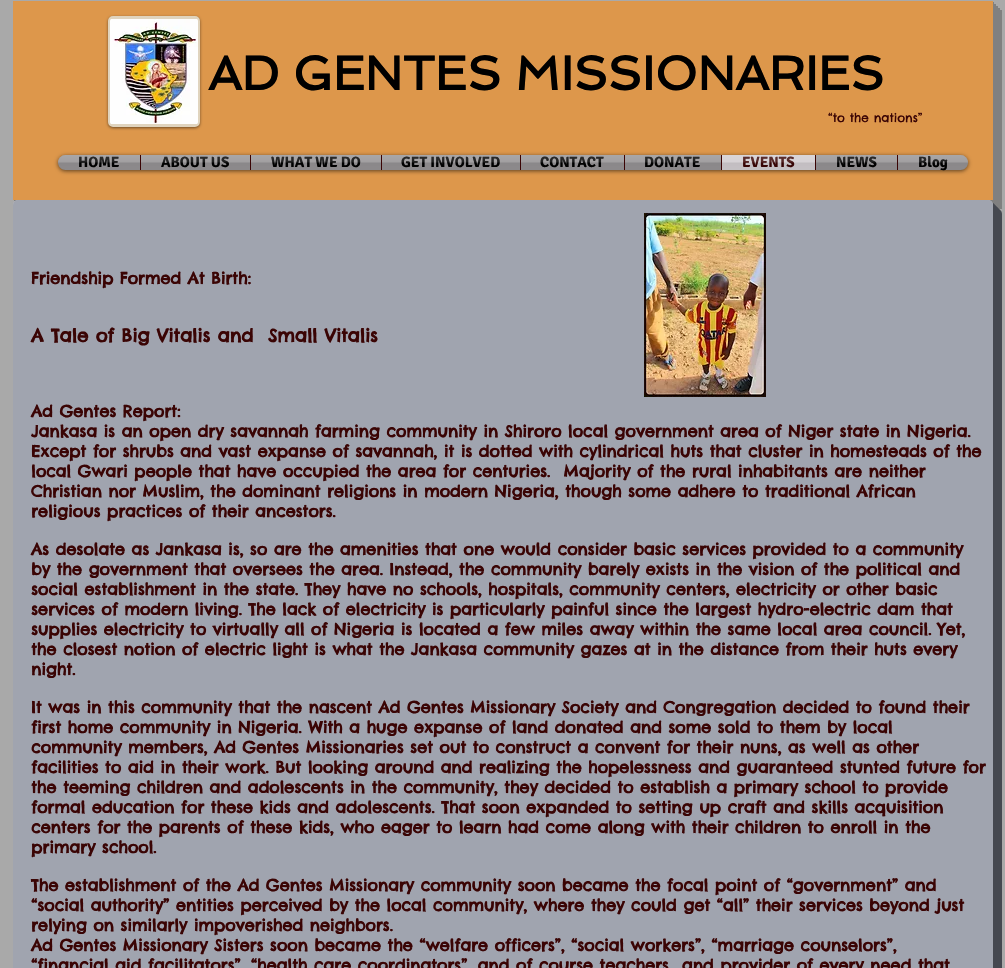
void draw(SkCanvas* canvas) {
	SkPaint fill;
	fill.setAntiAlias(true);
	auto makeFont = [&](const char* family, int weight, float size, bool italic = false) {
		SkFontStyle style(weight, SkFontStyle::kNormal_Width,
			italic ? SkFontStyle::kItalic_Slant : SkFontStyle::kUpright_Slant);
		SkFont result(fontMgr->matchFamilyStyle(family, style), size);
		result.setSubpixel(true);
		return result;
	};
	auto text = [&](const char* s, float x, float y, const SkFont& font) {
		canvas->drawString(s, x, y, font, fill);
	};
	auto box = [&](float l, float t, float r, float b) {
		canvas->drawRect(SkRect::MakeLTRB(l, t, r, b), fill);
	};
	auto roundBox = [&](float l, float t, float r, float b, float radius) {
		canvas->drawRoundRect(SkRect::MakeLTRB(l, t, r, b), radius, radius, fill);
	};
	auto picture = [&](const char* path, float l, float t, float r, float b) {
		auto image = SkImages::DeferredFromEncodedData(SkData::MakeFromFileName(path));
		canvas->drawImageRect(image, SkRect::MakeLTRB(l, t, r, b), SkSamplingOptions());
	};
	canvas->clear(0xFFA9A9A9);
	fill.setColor(0xFF808080);
	canvas->drawPath(SkPathBuilder().moveTo(22, 200).lineTo(22, 209).lineTo(1002, 209).lineTo(1002, 10).lineTo(993, 10).lineTo(993, 200).close().detach(), fill);
	canvas->drawPath(SkPathBuilder().moveTo(20, 200).lineTo(20, 207).lineTo(1000, 207).lineTo(1000, 8).lineTo(993, 8).lineTo(993, 200).close().detach(), fill);
	canvas->drawPath(SkPathBuilder().moveTo(18, 200).lineTo(18, 205).lineTo(998, 205).lineTo(998, 6).lineTo(993, 6).lineTo(993, 200).close().detach(), fill);
	canvas->drawPath(SkPathBuilder().moveTo(16, 200).lineTo(16, 203).lineTo(996, 203).lineTo(996, 4).lineTo(993, 4).lineTo(993, 200).close().detach(), fill);
	canvas->drawPath(SkPathBuilder().moveTo(14, 200).lineTo(14, 201).lineTo(994, 201).lineTo(994, 2).lineTo(993, 2).lineTo(993, 200).close().detach(), fill);
	fill.setColor(0xFFDD974B);
	box(13, 1, 993, 200);
	fill.setColor(0x80000000);
	fill.setMaskFilter(SkMaskFilter::MakeBlur(kNormal_SkBlurStyle, 1.5f));
	canvas->drawRoundRect(SkRect::MakeLTRB(108, 17, 200, 128), 5, 5, fill);
	fill.setMaskFilter(nullptr);
	fill.setColor(0xFFE0D4BE);
	canvas->drawRoundRect(SkRect::MakeLTRB(109, 17, 199, 126), 4, 4, fill);
	fill.setStyle(SkPaint::kStroke_Style);
	fill.setStrokeWidth(2);
	canvas->drawRoundRect(SkRect::MakeLTRB(109, 17, 199, 126), 4, 4, fill);
	picture("image0.png", 110, 19, 198, 124);
	fill.setStyle(SkPaint::kFill_Style);
	fill.setColor(0x99000000);
	fill.setMaskFilter(SkMaskFilter::MakeBlur(kNormal_SkBlurStyle, 2));
	canvas->drawRoundRect(SkRect::MakeLTRB(58, 156, 968, 171), 7.5f, 7.5f, fill);
	fill.setMaskFilter(nullptr);
	picture("image1.png", 58, 155, 968, 170);
	fill.setColor(0xFF959294);
	canvas->drawPath(SkPathBuilder().moveTo(65.5f, 155).lineTo(140, 155).lineTo(140, 170).lineTo(65.5f, 170).cubicTo(61.5f, 170, 58, 166.5f, 58, 162.5f).cubicTo(58, 158.5f, 61.5f, 155, 65.5f, 155).close().detach(), fill);
	box(141, 155, 250, 170);
	fill.setColor(0xFF3A0404);
	box(140, 155, 141, 170);
	fill.setColor(0xFF959294);
	box(251, 155, 381, 170);
	fill.setColor(0xFF3A0404);
	box(250, 155, 251, 170);
	fill.setColor(0xFF959294);
	box(382, 155, 520, 170);
	fill.setColor(0xFF3A0404);
	box(381, 155, 382, 170);
	fill.setColor(0xFF959294);
	box(521, 155, 624, 170);
	fill.setColor(0xFF3A0404);
	box(520, 155, 521, 170);
	fill.setColor(0xFF959294);
	box(625, 155, 721, 170);
	fill.setColor(0xFF3A0404);
	box(624, 155, 625, 170);
	fill.setColor(0xFFD1CCD0);
	box(722, 155, 815, 170);
	fill.setColor(0xFF3A0404);
	box(721, 155, 722, 170);
	fill.setColor(0xFF959294);
	box(816, 155, 897, 170);
	fill.setColor(0xFF3A0404);
	box(815, 155, 816, 170);
	fill.setColor(0xFF959294);
	canvas->drawPath(SkPathBuilder().moveTo(897, 155).lineTo(960.5f, 155).cubicTo(964.5f, 155, 968, 158.5f, 968, 162.5f).cubicTo(968, 166.5f, 964.5f, 170, 960.5f, 170).lineTo(897, 170).close().detach(), fill);
	fill.setColor(0xFF3A0404);
	box(897, 155, 898, 170);
	fill.setColor(0xFF454850);
	canvas->drawPath(SkPathBuilder().moveTo(22, 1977).lineTo(22, 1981).cubicTo(22, 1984, 24, 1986, 27, 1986).lineTo(997, 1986).cubicTo(1000, 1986, 1002, 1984, 1002, 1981).lineTo(1002, 214).cubicTo(1002, 211, 1000, 209, 997, 209).lineTo(993, 209).lineTo(993, 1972).cubicTo(993, 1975, 991, 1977, 988, 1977).close().detach(), fill);
	canvas->drawPath(SkPathBuilder().moveTo(20, 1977).lineTo(20, 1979).cubicTo(20, 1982, 22, 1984, 25, 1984).lineTo(995, 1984).cubicTo(998, 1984, 1000, 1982, 1000, 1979).lineTo(1000, 212).cubicTo(1000, 209, 998, 207, 995, 207).lineTo(993, 207).lineTo(993, 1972).cubicTo(993, 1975, 991, 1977, 988, 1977).close().detach(), fill);
	canvas->drawPath(SkPathBuilder().moveTo(18, 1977).cubicTo(18, 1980, 20, 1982, 23, 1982).lineTo(993, 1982).cubicTo(996, 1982, 998, 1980, 998, 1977).lineTo(998, 210).cubicTo(998, 207, 996, 205, 993, 205).lineTo(993, 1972).cubicTo(993, 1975, 991, 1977, 988, 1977).close().detach(), fill);
	canvas->drawPath(SkPathBuilder().moveTo(16, 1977).cubicTo(17, 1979, 19, 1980, 21, 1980).lineTo(991, 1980).cubicTo(994, 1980, 996, 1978, 996, 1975).lineTo(996, 208).cubicTo(996, 206, 995, 204, 993, 203).lineTo(993, 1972).cubicTo(993, 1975, 991, 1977, 988, 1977).close().detach(), fill);
	canvas->drawPath(SkPathBuilder().moveTo(15, 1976).cubicTo(16, 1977, 17, 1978, 19, 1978).lineTo(989, 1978).cubicTo(992, 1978, 994, 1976, 994, 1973).lineTo(994, 206).cubicTo(994, 204, 993, 203, 992, 202).cubicTo(993, 203, 993, 204, 993, 205).lineTo(993, 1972).cubicTo(993, 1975, 991, 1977, 988, 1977).lineTo(18, 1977).cubicTo(17, 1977, 16, 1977, 15, 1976).close().detach(), fill);
	fill.setColor(0xFFD1CCD0);
	roundBox(13, 200, 993, 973, 5);
	fill.setColor(0xAD89909F);
	roundBox(13, 200, 993, 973, 5);
	picture("image11.png", 644, 213, 766, 397);
	auto font1 = makeFont("Spinnaker", 700, 48);
	fill.setColor(0xFF000000);
	text("AD GENTES MISSIONARIES", 208, 90, font1);
	auto font2 = makeFont("Chelsea Market", 400, 12);
	fill.setColor(0xFF3A0404);
	text("“to the nations”", 828, 122, font2);
	auto font3 = makeFont("Signika", 700, 15);
	fill.setColor(0xFF000000);
	text("HOME", 78, 167, font3);
	picture("image2.png", 58, 155, 140, 170);
	text("ABOUT US", 161, 167, font3);
	picture("image3.png", 141, 155, 250, 170);
	text("WHAT WE DO", 271, 167, font3);
	picture("image4.png", 251, 155, 381, 170);
	text("GET INVOLVED", 401, 167, font3);
	picture("image5.png", 382, 155, 520, 170);
	text("CONTACT", 540, 167, font3);
	picture("image6.png", 521, 155, 624, 170);
	text("DONATE", 644, 167, font3);
	picture("image7.png", 625, 155, 721, 170);
	fill.setColor(0xFF3A0404);
	text("EVENTS", 742, 167, font3);
	picture("image8.png", 722, 155, 815, 170);
	fill.setColor(0xFF000000);
	text("NEWS", 836, 167, font3);
	picture("image9.png", 816, 155, 897, 170);
	text("Blog", 918, 167, font3);
	picture("image10.png", 898, 155, 968, 170);
	auto font4 = makeFont("Chelsea Market", 700, 16);
	fill.setColor(0xFF3A0404);
	text("Friendship Formed At Birth:", 31, 284, font4);
	auto font5 = makeFont("Chelsea Market", 700, 18);
	text("A Tale of Big Vitalis and  Small Vitalis", 31, 342, font5);
	text("Ad Gentes Report:", 31, 417, font4);
	text("Jankasa is an open dry savannah farming community in Shiroro local government area of Niger state in Nigeria.", 31, 437, font4);
	text("Except for shrubs and vast expanse of savannah, it is dotted with cylindrical huts that cluster in homesteads of the", 31, 457, font4);
	text("local Gwari people that have occupied the area for centuries.  Majority of the rural inhabitants are neither", 31, 477, font4);
	text("Christian nor Muslim, the dominant religions in modern Nigeria, though some adhere to traditional African", 31, 497, font4);
	text("religious practices of their ancestors.", 31, 517, font4);
	text("As desolate as Jankasa is, so are the amenities that one would consider basic services provided to a community", 31, 555, font4);
	text("by the government that oversees the area. Instead, the community barely exists in the vision of the political and", 31, 575, font4);
	text("social establishment in the state. They have no schools, hospitals, community centers, electricity or other basic", 31, 595, font4);
	text("services of modern living. The lack of electricity is particularly painful since the largest hydro-electric dam that", 31, 615, font4);
	text("supplies electricity to virtually all of Nigeria is located a few miles away within the same local area council. Yet,", 31, 635, font4);
	text("the closest notion of electric light is what the Jankasa community gazes at in the distance from their huts every", 31, 655, font4);
	text("night.", 31, 675, font4);
	text("It was in this community that the nascent Ad Gentes Missionary Society and Congregation decided to found their", 31, 713, font4);
	text("first home community in Nigeria. With a huge expanse of land donated and some sold to them by local", 31, 733, font4);
	text("community members, Ad Gentes Missionaries set out to construct a convent for their nuns, as well as other", 31, 753, font4);
	text("facilities to aid in their work. But looking around and realizing the hopelessness and guaranteed stunted future for", 31, 773, font4);
	text("the teeming children and adolescents in the community, they decided to establish a primary school to provide", 31, 793, font4);
	text("formal education for these kids and adolescents. That soon expanded to setting up craft and skills acquisition", 31, 813, font4);
	text("centers for the parents of these kids, who eager to learn had come along with their children to enroll in the", 31, 833, font4);
	text("primary school.", 31, 853, font4);
	text("The establishment of the Ad Gentes Missionary community soon became the focal point of “government” and", 31, 891, font4);
	text("“social authority” entities perceived by the local community, where they could get “all” their services beyond just", 31, 911, font4);
	text("relying on similarly impoverished neighbors.", 31, 931, font4);
	text("Ad Gentes Missionary Sisters soon became the “welfare officers”, “social workers”, “marriage counselors”,", 31, 951, font4);
	text("“financial aid facilitators”, “health care coordinators”, and of course teachers  and provider of every need that", 31, 971, font4);
}
